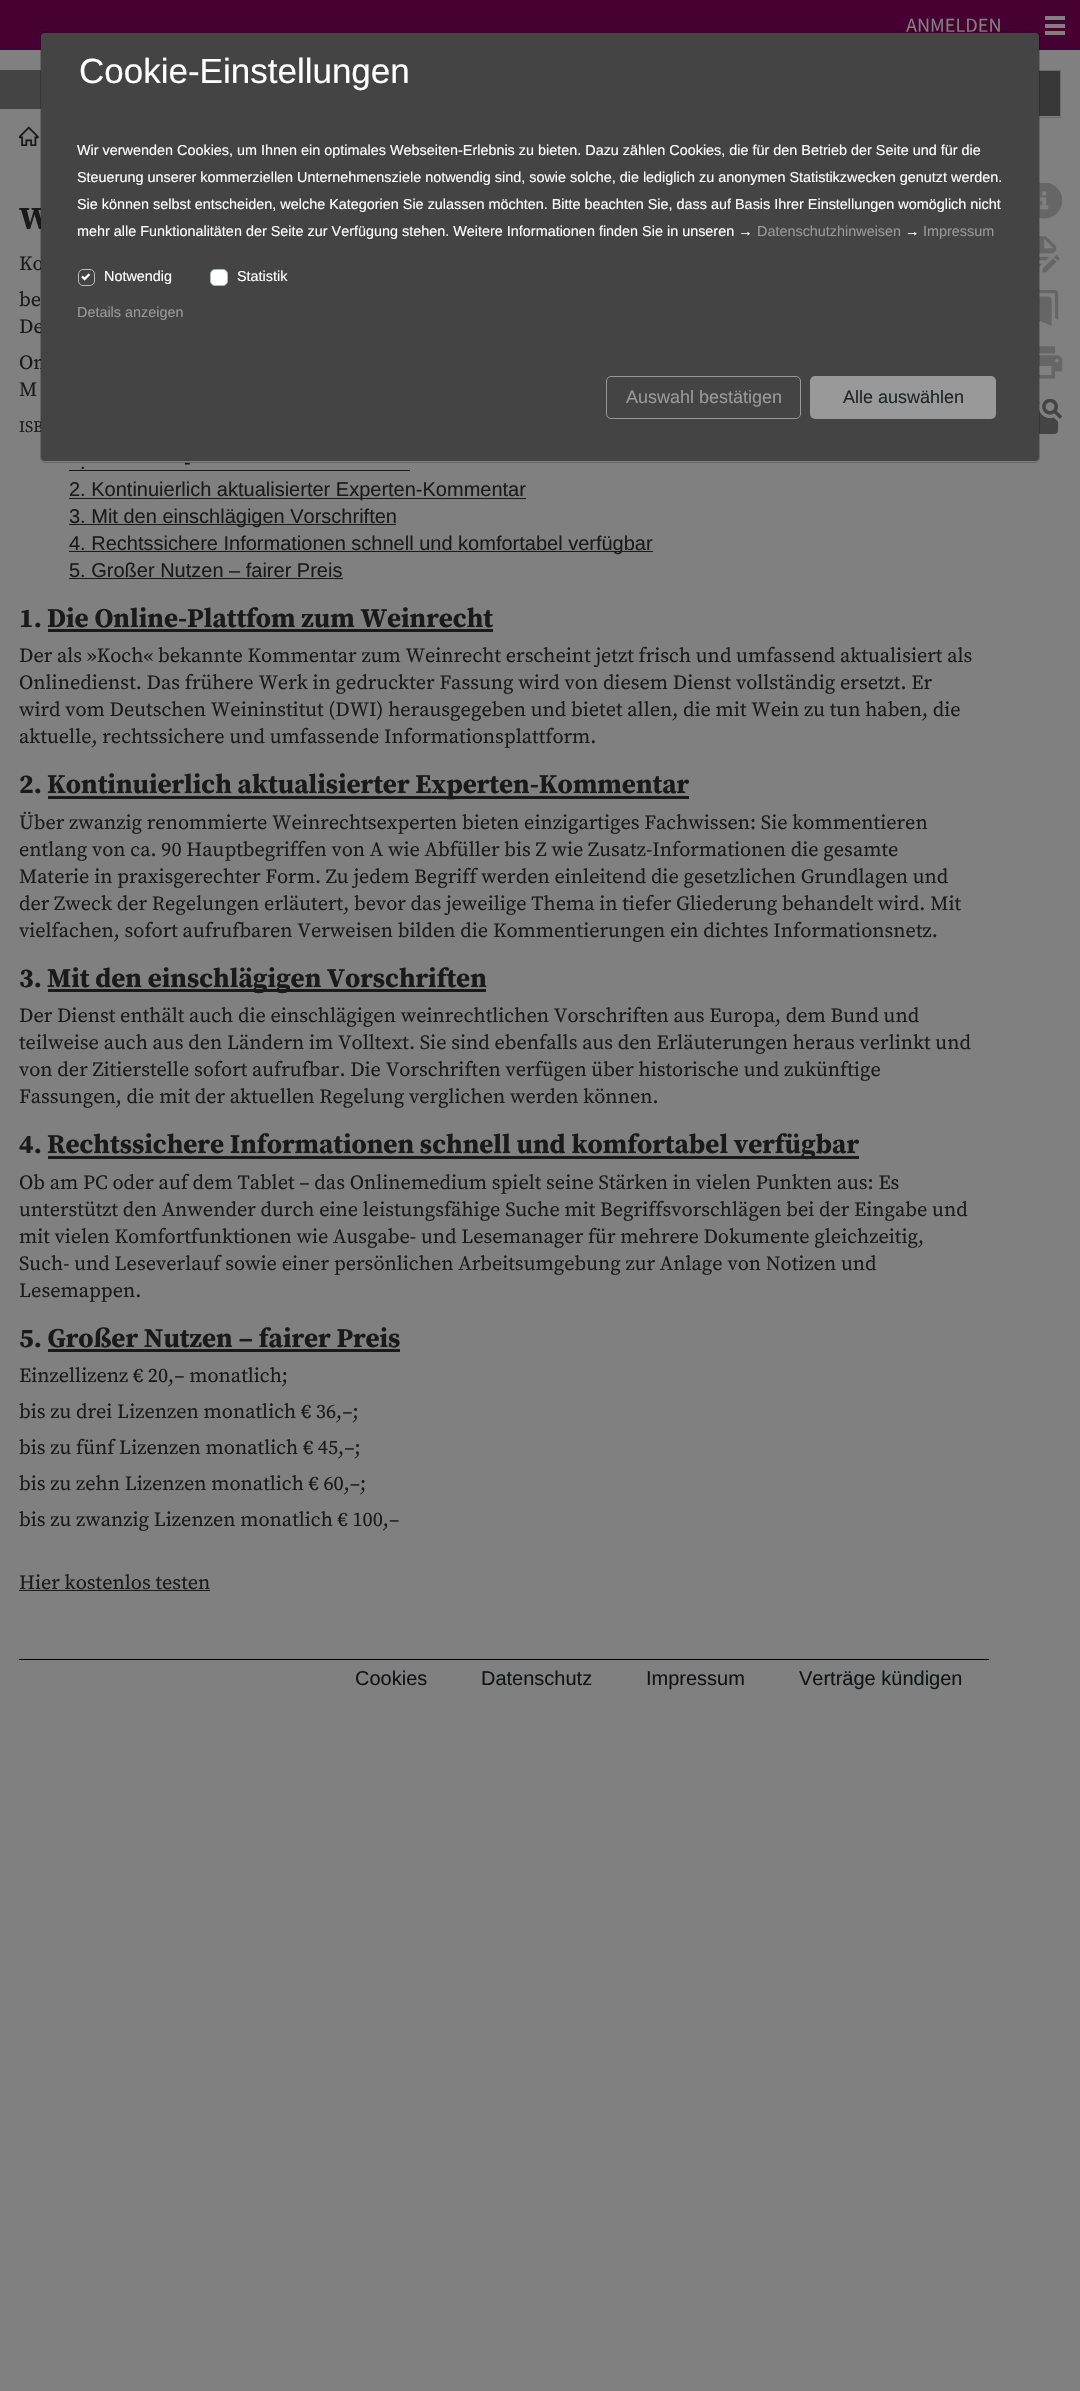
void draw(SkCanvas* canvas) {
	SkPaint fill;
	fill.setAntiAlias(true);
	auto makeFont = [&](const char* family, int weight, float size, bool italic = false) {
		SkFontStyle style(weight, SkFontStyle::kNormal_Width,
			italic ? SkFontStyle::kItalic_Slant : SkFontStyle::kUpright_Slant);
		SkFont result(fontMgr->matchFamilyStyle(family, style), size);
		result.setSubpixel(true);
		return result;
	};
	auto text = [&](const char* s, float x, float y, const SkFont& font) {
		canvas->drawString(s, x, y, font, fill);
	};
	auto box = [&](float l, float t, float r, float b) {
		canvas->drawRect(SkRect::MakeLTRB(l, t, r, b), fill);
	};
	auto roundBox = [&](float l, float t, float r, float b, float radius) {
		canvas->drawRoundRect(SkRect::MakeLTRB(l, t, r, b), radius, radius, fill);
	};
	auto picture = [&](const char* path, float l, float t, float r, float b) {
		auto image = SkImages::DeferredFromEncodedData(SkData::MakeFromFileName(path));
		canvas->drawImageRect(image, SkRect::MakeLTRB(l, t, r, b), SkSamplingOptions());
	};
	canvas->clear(0xFF808080);
	fill.setColor(0xFF460032);
	box(0, 0, 1080, 50);
	fill.setColor(0xFF808080);
	box(1045, 16, 1065, 20);
	box(1045, 24, 1065, 28);
	box(1045, 31, 1065, 35);
	fill.setColor(0xFF444444);
	box(0, 70, 41, 109);
	fill.setStyle(SkPaint::kStroke_Style);
	fill.setStrokeWidth(1);
	fill.setColor(0xFF6D6D6D);
	canvas->drawRect(SkRect::MakeLTRB(86.5f, 70.5f, 1060.5f, 117.5f), fill);
	fill.setStyle(SkPaint::kFill_Style);
	fill.setColor(0xFF383838);
	box(1039, 71, 1060, 116);
	picture("image0.png", 19, 126, 39, 146);
	fill.setColor(0xFF1A1A1A);
	box(69, 470, 410, 471);
	box(69, 498, 526, 499);
	box(69, 524, 396, 525);
	box(69, 551, 653, 552);
	box(69, 578, 343, 579);
	box(48, 629, 493, 632);
	box(48, 796, 689, 799);
	box(48, 989, 486, 992);
	box(48, 1156, 859, 1159);
	box(48, 1349, 400, 1352);
	box(19, 1590, 210, 1591);
	fill.setColor(0xFF000000);
	box(19, 1659, 989, 1660);
	picture("image1.png", 1039, 183, 1063, 219);
	picture("image2.png", 1039, 236, 1060, 273);
	picture("image3.png", 1039, 290, 1059, 326);
	picture("image4.png", 1039, 346, 1063, 379);
	picture("image5.png", 1039, 399, 1063, 434);
	auto font1 = makeFont("Source Sans Pro", 400, 20.25f);
	fill.setColor(0xFF808080);
	text("ANMELDEN", 906, 32, font1);
	auto font2 = makeFont("Source Serif Pro", 700, 32);
	fill.setColor(0xFF1A1A1A);
	text("W", 19, 229, font2);
	auto font3 = makeFont("Source Serif Pro", 400, 20.25f);
	text("Ko", 19, 270, font3);
	text("be", 19, 306, font3);
	text("De", 19, 333, font3);
	text("On", 19, 369, font3);
	text("M", 19, 396, font3);
	auto font4 = makeFont("Source Serif Pro", 400, 16);
	text("ISB", 19, 432, font4);
	auto font5 = makeFont("Liberation Sans", 400, 20);
	text("-", 184, 469, font5);
	text(".", 80, 469, font5);
	text("2. Kontinuierlich aktualisierter Experten-Kommentar", 69, 496, font5);
	text("3. Mit den einschlägigen Vorschriften", 69, 523, font5);
	text("4. Rechtssichere Informationen schnell und komfortabel verfügbar", 69, 550, font5);
	text("5. Großer Nutzen – fairer Preis", 69, 577, font5);
	auto font6 = makeFont("Source Serif Pro", 700, 27);
	text("1.", 19, 627, font6);
	text("Die Online-Plattfom zum Weinrecht", 47, 627, font6);
	text("Der als »Koch« bekannte Kommentar zum Weinrecht erscheint jetzt frisch und umfassend aktualisiert als", 19, 662, font3);
	text("Onlinedienst. Das frühere Werk in gedruckter Fassung wird von diesem Dienst vollständig ersetzt. Er", 19, 689, font3);
	text("wird vom Deutschen Weininstitut (DWI) herausgegeben und bietet allen, die mit Wein zu tun haben, die", 19, 716, font3);
	text("aktuelle, rechtssichere und umfassende Informationsplattform.", 19, 743, font3);
	text("2.", 19, 793, font6);
	text("Kontinuierlich aktualisierter Experten-Kommentar", 47, 793, font6);
	text("Über zwanzig renommierte Weinrechtsexperten bieten einzigartiges Fachwissen: Sie kommentieren", 19, 829, font3);
	text("entlang von ca. 90 Hauptbegriffen von A wie Abfüller bis Z wie Zusatz-Informationen die gesamte", 19, 856, font3);
	text("Materie in praxisgerechter Form. Zu jedem Begriff werden einleitend die gesetzlichen Grundlagen und", 19, 883, font3);
	text("der Zweck der Regelungen erläutert, bevor das jeweilige Thema in tiefer Gliederung behandelt wird. Mit", 19, 910, font3);
	text("vielfachen, sofort aufrufbaren Verweisen bilden die Kommentierungen ein dichtes Informationsnetz.", 19, 937, font3);
	text("3.", 19, 987, font6);
	text("Mit den einschlägigen Vorschriften", 47, 987, font6);
	text("Der Dienst enthält auch die einschlägigen weinrechtlichen Vorschriften aus Europa, dem Bund und", 19, 1022, font3);
	text("teilweise auch aus den Ländern im Volltext. Sie sind ebenfalls aus den Erläuterungen heraus verlinkt und", 19, 1049, font3);
	text("von der Zitierstelle sofort aufrufbar. Die Vorschriften verfügen über historische und zukünftige", 19, 1076, font3);
	text("Fassungen, die mit der aktuellen Regelung verglichen werden können.", 19, 1103, font3);
	text("4.", 19, 1153, font6);
	text("Rechtssichere Informationen schnell und komfortabel verfügbar", 47, 1153, font6);
	text("Ob am PC oder auf dem Tablet – das Onlinemedium spielt seine Stärken in vielen Punkten aus: Es", 19, 1189, font3);
	text("unterstützt den Anwender durch eine leistungsfähige Suche mit Begriffsvorschlägen bei der Eingabe und", 19, 1216, font3);
	text("mit vielen Komfortfunktionen wie Ausgabe- und Lesemanager für mehrere Dokumente gleichzeitig,", 19, 1243, font3);
	text("Such- und Leseverlauf sowie einer persönlichen Arbeitsumgebung zur Anlage von Notizen und", 19, 1270, font3);
	text("Lesemappen.", 19, 1297, font3);
	text("5. Großer Nutzen – fairer Preis", 19, 1347, font6);
	text("Einzellizenz € 20,– monatlich;", 19, 1382, font3);
	text("bis zu drei Lizenzen monatlich € 36,–;", 19, 1418, font3);
	text("bis zu fünf Lizenzen monatlich € 45,–;", 19, 1454, font3);
	text("bis zu zehn Lizenzen monatlich € 60,–;", 19, 1490, font3);
	text("bis zu zwanzig Lizenzen monatlich € 100,–", 19, 1526, font3);
	text("Hier kostenlos testen", 19, 1589, font3);
	fill.setColor(0xFF111315);
	text("Cookies", 355, 1685, font5);
	text("Datenschutz", 481, 1685, font5);
	text("Impressum", 646, 1685, font5);
	text("Verträge kündigen", 799, 1685, font5);
	fill.setColor(0xFF444444);
	roundBox(41, 33, 1039, 461, 4);
	fill.setStyle(SkPaint::kStroke_Style);
	fill.setColor(0x33000000);
	canvas->drawRoundRect(SkRect::MakeLTRB(40.5f, 31.5f, 1039.5f, 462.5f), 4.5f, 4.5f, fill);
	auto font7 = makeFont("Liberation Sans", 400, 35);
	fill.setStyle(SkPaint::kFill_Style);
	fill.setColor(0xFFFFFFFF);
	text("Cookie-Einstellungen", 79, 83, font7);
	auto font8 = makeFont("Liberation Sans", 400, 14.4f);
	text("Wir verwenden Cookies, um Ihnen ein optimales Webseiten-Erlebnis zu bieten. Dazu zählen Cookies, die für den Betrieb der Seite und für die", 77, 155, font8);
	text("Steuerung unserer kommerziellen Unternehmensziele notwendig sind, sowie solche, die lediglich zu anonymen Statistikzwecken genutzt werden.", 77, 182, font8);
	text("Sie können selbst entscheiden, welche Kategorien Sie zulassen möchten. Bitte beachten Sie, dass auf Basis Ihrer Einstellungen womöglich nicht", 77, 209, font8);
	text("mehr alle Funktionalitäten der Seite zur Verfügung stehen. Weitere Informationen finden Sie in unseren →", 77, 236, font8);
	fill.setColor(0xFF999999);
	text("Datenschutzhinweisen", 757, 236, font8);
	fill.setColor(0xFFFFFFFF);
	text("→", 905, 236, font8);
	fill.setColor(0xFF999999);
	text("Impressum", 923, 236, font8);
	fill.setStyle(SkPaint::kStroke_Style);
	fill.setColor(0xFFBBBBBB);
	canvas->drawRoundRect(SkRect::MakeLTRB(78.5f, 269.5f, 94.5f, 285.5f), 4.5f, 4.5f, fill);
	fill.setStyle(SkPaint::kFill_Style);
	fill.setColor(0xFFFFFFFF);
	text("Notwendig", 104, 281, font8);
	picture("image6.png", 81, 273, 91, 281);
	canvas->drawRoundRect(SkRect::MakeLTRB(210.5f, 269.5f, 227.5f, 285.5f), 4.5f, 4.5f, fill);
	fill.setStyle(SkPaint::kStroke_Style);
	fill.setColor(0xFFADB5BD);
	canvas->drawRoundRect(SkRect::MakeLTRB(210.5f, 269.5f, 227.5f, 285.5f), 4.5f, 4.5f, fill);
	fill.setStyle(SkPaint::kFill_Style);
	fill.setColor(0xFFFFFFFF);
	text("Statistik", 237, 281, font8);
	fill.setColor(0xFF999999);
	text("Details anzeigen", 77, 317, font8);
	fill.setStyle(SkPaint::kStroke_Style);
	canvas->drawRoundRect(SkRect::MakeLTRB(606.5f, 376.5f, 800.5f, 418.5f), 4.5f, 4.5f, fill);
	auto font9 = makeFont("Liberation Sans", 400, 18);
	fill.setStyle(SkPaint::kFill_Style);
	text("Auswahl bestätigen", 626, 403, font9);
	roundBox(810, 376, 996, 419, 5);
	fill.setColor(0xFF212529);
	text("Alle auswählen", 843, 403, font9);
}
